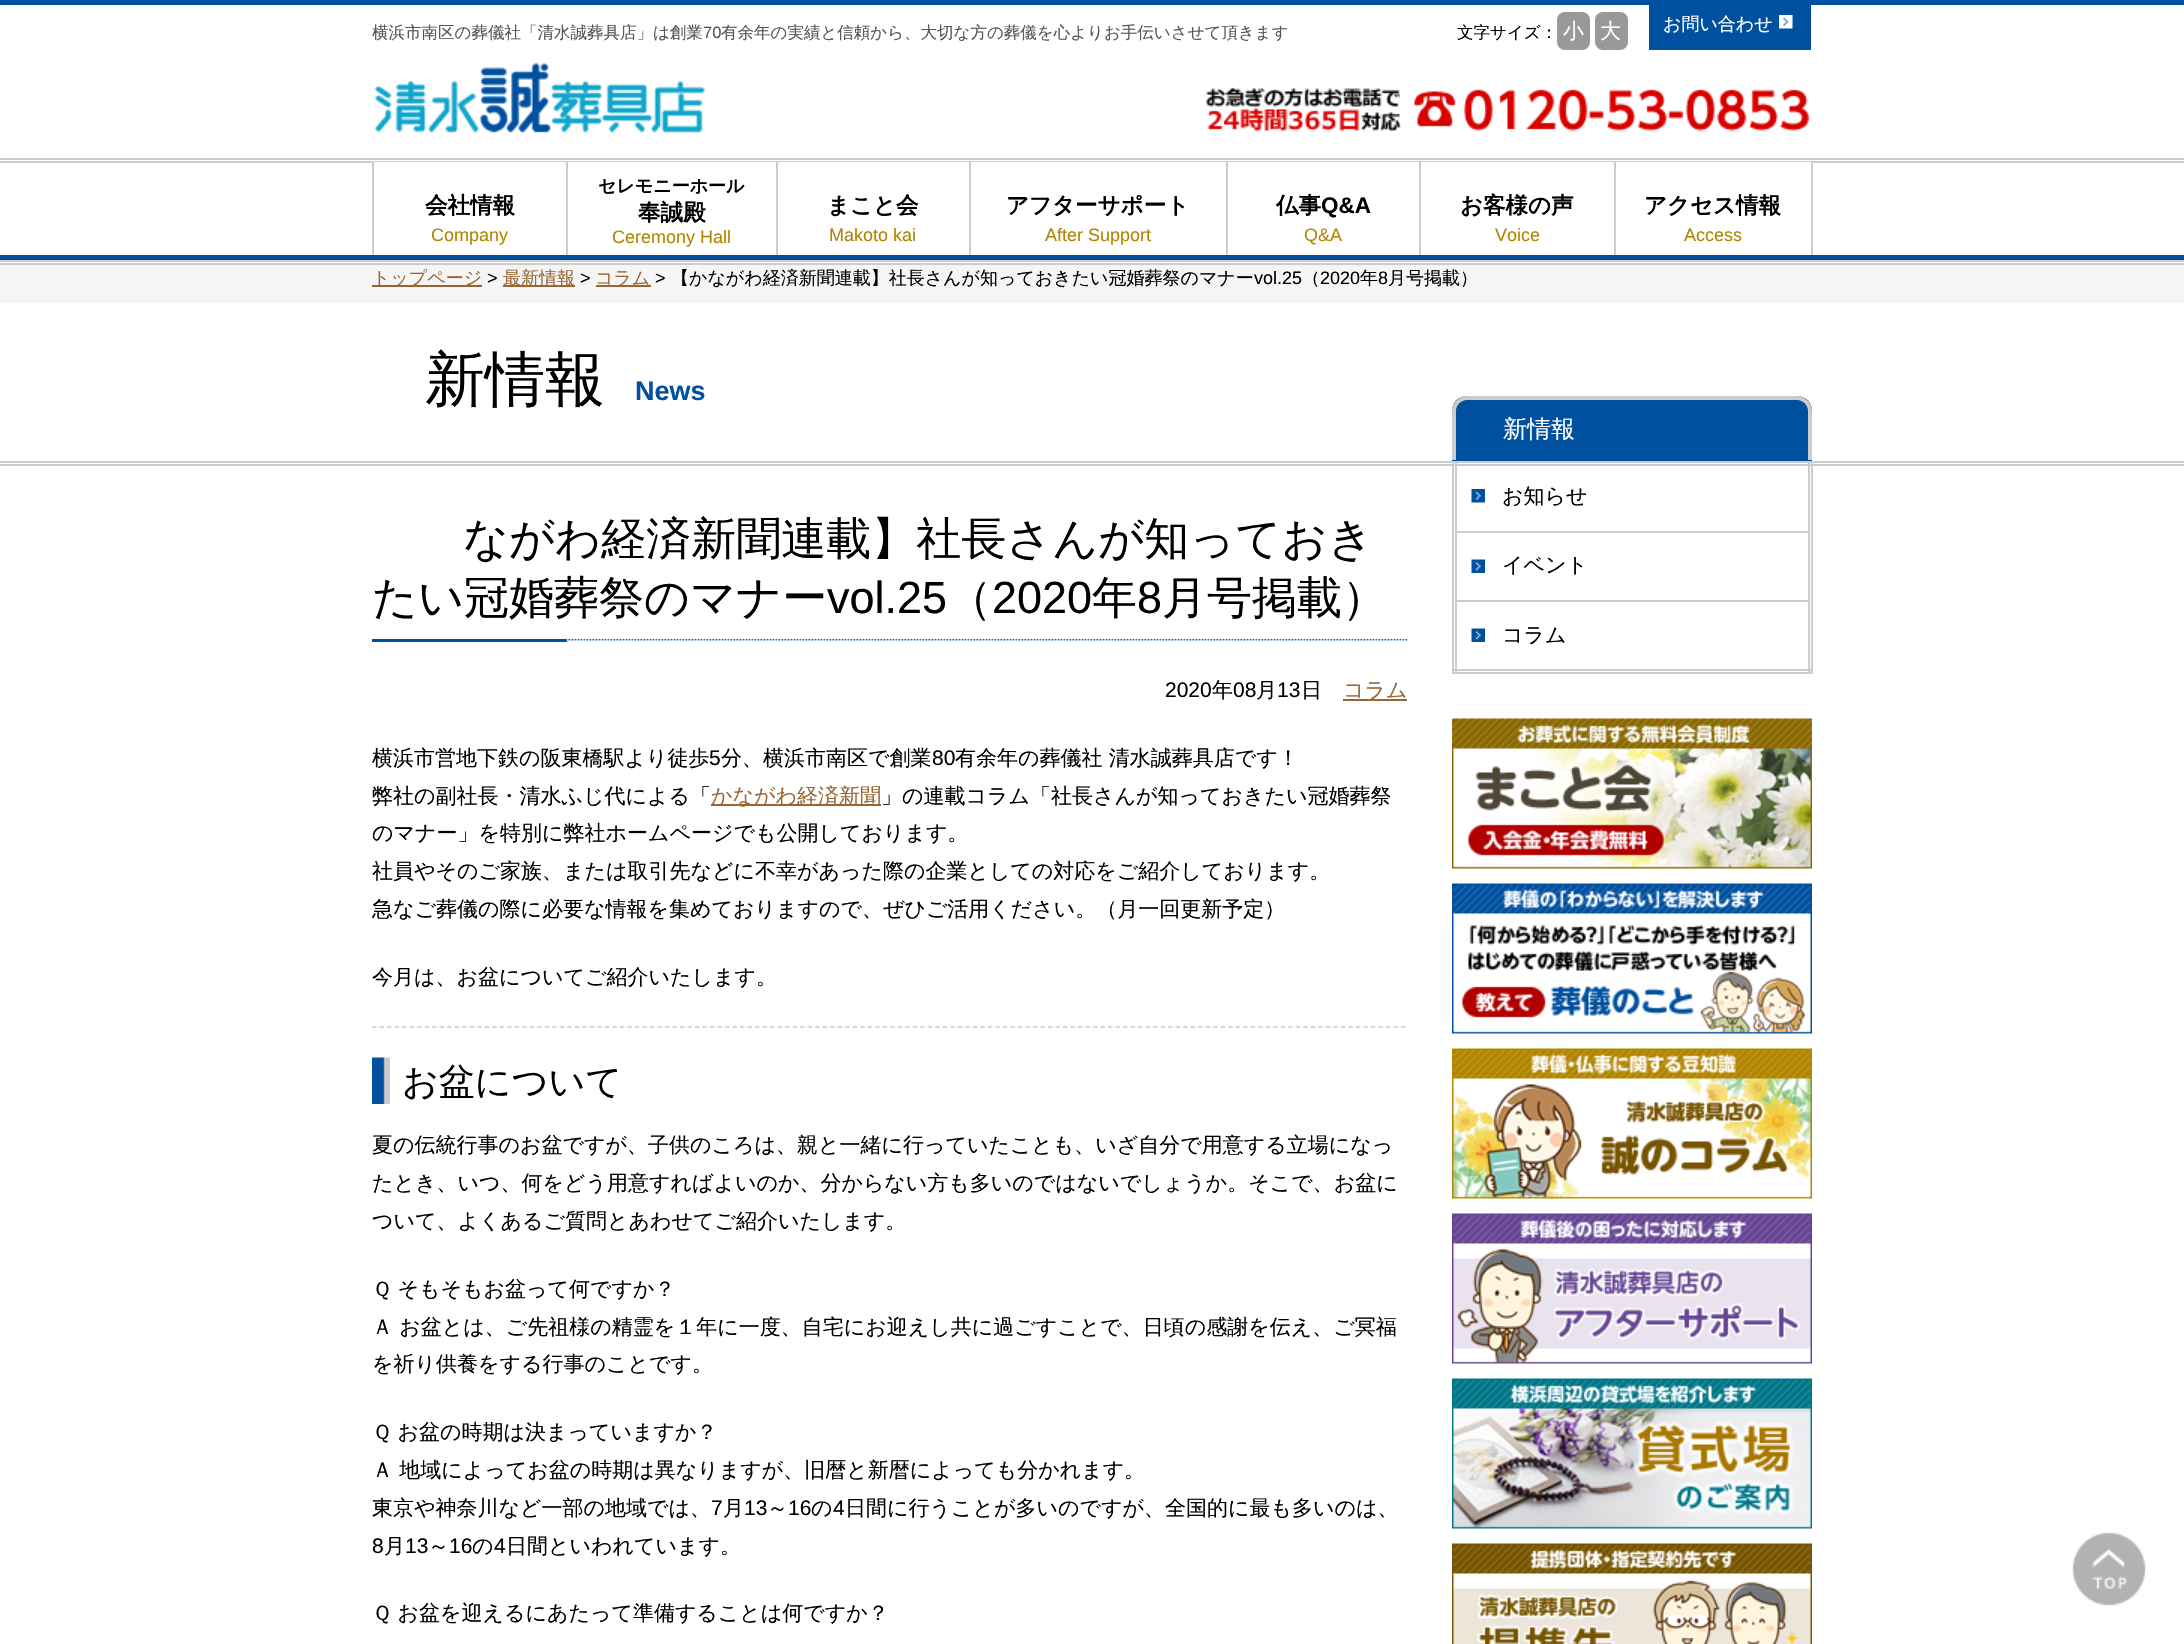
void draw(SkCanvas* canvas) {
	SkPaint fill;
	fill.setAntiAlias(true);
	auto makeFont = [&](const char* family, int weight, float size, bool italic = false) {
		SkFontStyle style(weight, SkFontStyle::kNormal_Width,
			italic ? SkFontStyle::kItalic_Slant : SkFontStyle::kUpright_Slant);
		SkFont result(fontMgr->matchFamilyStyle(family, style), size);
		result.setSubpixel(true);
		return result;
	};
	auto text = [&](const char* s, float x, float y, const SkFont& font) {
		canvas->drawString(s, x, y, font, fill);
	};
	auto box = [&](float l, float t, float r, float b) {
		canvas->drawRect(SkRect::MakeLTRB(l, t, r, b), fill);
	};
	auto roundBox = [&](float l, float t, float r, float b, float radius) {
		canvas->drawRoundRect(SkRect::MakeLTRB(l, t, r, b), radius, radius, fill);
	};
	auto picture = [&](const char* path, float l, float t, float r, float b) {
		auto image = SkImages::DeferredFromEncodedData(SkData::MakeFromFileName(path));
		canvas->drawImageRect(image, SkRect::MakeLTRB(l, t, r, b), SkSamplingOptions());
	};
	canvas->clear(0xFFFFFFFF);
	fill.setColor(0xFF0050A0);
	box(0, 0, 2184, 5);
	fill.setColor(0xFFCCCCCC);
	box(0, 260, 2184, 262);
	box(0, 263, 2184, 265);
	fill.setColor(0xFF999999);
	roundBox(1557, 12, 1590, 50, 8);
	roundBox(1595, 12, 1628, 50, 8);
	fill.setColor(0xFF0050A0);
	box(1649, 5, 1811, 50);
	picture("image0.png", 1779, 15, 1793, 29);
	picture("image1.png", 374, 62, 706, 133);
	picture("image2.png", 1205, 87, 1810, 131);
	fill.setColor(0xFFCCCCCC);
	box(0, 158, 2184, 160);
	box(0, 161, 2184, 163);
	fill.setColor(0xFF0050A0);
	box(0, 255, 2184, 260);
	fill.setColor(0xFFCCCCCC);
	box(1811, 162, 1813, 255);
	fill.setColor(0xFFFFFFFF);
	box(374, 162, 566, 163);
	fill.setColor(0xFFCCCCCC);
	box(372, 162, 374, 255);
	fill.setColor(0xFFFFFFFF);
	box(568, 162, 776, 163);
	fill.setColor(0xFFCCCCCC);
	box(566, 162, 568, 255);
	fill.setColor(0xFFFFFFFF);
	box(778, 162, 969, 163);
	fill.setColor(0xFFCCCCCC);
	box(776, 162, 778, 255);
	fill.setColor(0xFFFFFFFF);
	box(971, 162, 1226, 163);
	fill.setColor(0xFFCCCCCC);
	box(969, 162, 971, 255);
	fill.setColor(0xFFFFFFFF);
	box(1228, 162, 1419, 163);
	fill.setColor(0xFFCCCCCC);
	box(1226, 162, 1228, 255);
	fill.setColor(0xFFFFFFFF);
	box(1421, 162, 1614, 163);
	fill.setColor(0xFFCCCCCC);
	box(1419, 162, 1421, 255);
	fill.setColor(0xFFFFFFFF);
	box(1616, 162, 1811, 163);
	fill.setColor(0xFFCCCCCC);
	box(1614, 162, 1616, 255);
	fill.setColor(0xFFF5F5F5);
	box(0, 265, 2184, 303);
	fill.setColor(0xFF996633);
	box(372, 285, 482, 287);
	box(503, 285, 575, 287);
	box(596, 285, 651, 287);
	fill.setColor(0xFFCCCCCC);
	box(0, 461, 2184, 463);
	box(0, 464, 2184, 466);
	picture("image3.png", 372, 639, 1407, 642);
	fill.setColor(0xFF996633);
	box(1343, 699, 1407, 701);
	box(711, 804, 881, 806);
	fill.setStyle(SkPaint::kStroke_Style);
	fill.setStrokeWidth(1.5f);
	fill.setColor(0xFFCCCCCC);
	fill.setPathEffect(SkDashPathEffect::Make({{4.5f, 3.01f}}, 0));
	canvas->drawPath(SkPathBuilder().moveTo(372, 1027).lineTo(1407, 1027).detach(), fill);
	fill.setPathEffect(nullptr);
	picture("image4.png", 372, 1057, 390, 1104);
	fill.setStyle(SkPaint::kFill_Style);
	fill.setColor(0xFF0050A0);
	canvas->drawPath(SkPathBuilder().moveTo(1467, 396).lineTo(1797, 396).cubicTo(1805.5f, 396, 1812, 402.5f, 1812, 411).lineTo(1812, 461).lineTo(1452, 461).lineTo(1452, 411).cubicTo(1452, 402.5f, 1458.5f, 396, 1467, 396).close().detach(), fill);
	fill.setColor(0xFFCCCCCC);
	canvas->drawPath(SkPathBuilder(SkPathFillType::kEvenOdd).moveTo(1467, 396).lineTo(1797, 396).cubicTo(1805, 396, 1812, 403, 1812, 411).lineTo(1812, 460).lineTo(1452, 460).lineTo(1452, 411).cubicTo(1452, 403, 1459, 396, 1467, 396).close().moveTo(1467, 400).lineTo(1797, 400).cubicTo(1803, 400, 1808, 405, 1808, 411).lineTo(1808, 460).lineTo(1456, 460).lineTo(1456, 411).cubicTo(1456, 405, 1461, 400, 1467, 400).close().detach(), fill);
	box(1808, 461, 1810, 674);
	box(1811, 461, 1813, 674);
	box(1452, 669, 1812, 671);
	box(1452, 672, 1812, 674);
	box(1452, 461, 1454, 674);
	box(1455, 461, 1457, 674);
	picture("image5.png", 1471, 489, 1485, 503);
	box(1457, 531, 1808, 533);
	picture("image6.png", 1471, 559, 1485, 573);
	box(1457, 600, 1808, 602);
	picture("image6.png", 1471, 628, 1485, 642);
	picture("image7.png", 1452, 718, 1812, 869);
	picture("image8.png", 1452, 883, 1812, 1034);
	picture("image9.png", 1452, 1048, 1812, 1199);
	picture("image10.png", 1452, 1213, 1812, 1364);
	picture("image11.png", 1452, 1378, 1812, 1529);
	picture("image12.png", 1452, 1543, 1812, 1644);
	picture("image13.png", 2072, 1532, 2146, 1606);
	auto font1 = makeFont("WenQuanYi Zen Hei", 500, 16.5f);
	fill.setColor(0xFF555555);
	text("横浜市南区の葬儀社「清水誠葬具店」は創業", 372, 38, font1);
	auto font2 = makeFont("Liberation Sans", 400, 16.5f);
	text("70", 703, 38, font2);
	text("有余年の実績と信頼から、大切な方の葬儀を心よりお手伝いさせて頂きます", 721, 38, font1);
	fill.setColor(0xFF000000);
	text("文字サイズ：", 1457, 38, font1);
	auto font3 = makeFont("WenQuanYi Zen Hei", 500, 21);
	fill.setColor(0xFFFFFFFF);
	text("小", 1563, 38, font3);
	text("大", 1600, 38, font3);
	auto font4 = makeFont("WenQuanYi Zen Hei", 500, 18);
	text("お問い合わせ", 1663, 30, font4);
	auto font5 = makeFont("WenQuanYi Zen Hei", 700, 22.5f);
	fill.setColor(0xFF000000);
	text("会社情報", 425, 213, font5);
	auto font6 = makeFont("Liberation Sans", 400, 18);
	fill.setColor(0xFFB28500);
	text("Company", 431, 241, font6);
	auto font7 = makeFont("WenQuanYi Zen Hei", 700, 18);
	fill.setColor(0xFF000000);
	text("セレモニーホール", 598, 192, font7);
	text("奉誠殿", 638, 220, font5);
	fill.setColor(0xFFB28500);
	text("Ceremony Hall", 612, 243, font6);
	fill.setColor(0xFF000000);
	text("まこと会", 827, 213, font5);
	fill.setColor(0xFFB28500);
	text("Makoto kai", 829, 241, font6);
	fill.setColor(0xFF000000);
	text("アフターサポート", 1006, 213, font5);
	fill.setColor(0xFFB28500);
	text("After Support", 1045, 241, font6);
	fill.setColor(0xFF000000);
	text("仏事", 1276, 213, font5);
	auto font8 = makeFont("Liberation Sans", 700, 22.5f);
	text("Q&A", 1321, 213, font8);
	fill.setColor(0xFFB28500);
	text("Q&A", 1304, 241, font6);
	fill.setColor(0xFF000000);
	text("お客様の声", 1460, 213, font5);
	fill.setColor(0xFFB28500);
	text("Voice", 1495, 241, font6);
	fill.setColor(0xFF000000);
	text("アクセス情報", 1644, 213, font5);
	fill.setColor(0xFFB28500);
	text("Access", 1684, 241, font6);
	fill.setColor(0xFF996633);
	text("トップページ", 372, 284, font4);
	fill.setColor(0xFF000000);
	text(">", 487, 284, font6);
	fill.setColor(0xFF996633);
	text("最新情報", 503, 284, font4);
	fill.setColor(0xFF000000);
	text(">", 580, 284, font6);
	fill.setColor(0xFF996633);
	text("コラム", 595, 284, font4);
	fill.setColor(0xFF000000);
	text(">", 655, 284, font6);
	text("【かながわ経済新聞連載】社長さんが知っておきたい冠婚葬祭のマナー", 671, 284, font4);
	text("vol.25", 1254, 284, font6);
	text("（", 1302, 284, font4);
	text("2020", 1320, 284, font6);
	text("年", 1360, 284, font4);
	text("8", 1378, 284, font6);
	text("月号掲載）", 1388, 284, font4);
	auto font9 = makeFont("Noto Sans", 400, 60);
	fill.setColor(0xFF0050A0);
	text("最", 365, 400, font9);
	auto font10 = makeFont("WenQuanYi Zen Hei", 500, 60);
	fill.setColor(0xFF000000);
	text("新情報", 425, 400, font10);
	auto font11 = makeFont("Liberation Sans", 700, 27);
	fill.setColor(0xFF0050A0);
	text("News", 635, 400, font11);
	auto font12 = makeFont("Noto Sans", 400, 45);
	text("【か", 372, 554, font12);
	auto font13 = makeFont("WenQuanYi Zen Hei", 500, 45);
	fill.setColor(0xFF000000);
	text("ながわ経済新聞連載】社長さんが知っておき", 463, 554, font13);
	text("たい冠婚葬祭のマナー", 372, 613, font13);
	auto font14 = makeFont("Liberation Sans", 400, 45);
	text("vol.25", 827, 613, font14);
	text("（", 947, 613, font13);
	text("2020", 992, 613, font14);
	text("年", 1092, 613, font13);
	text("8", 1137, 613, font14);
	text("月号掲載）", 1162, 613, font13);
	auto font15 = makeFont("Liberation Sans", 400, 21);
	text("2020", 1165, 697, font15);
	text("年", 1212, 697, font3);
	text("08", 1233, 697, font15);
	text("月", 1256, 697, font3);
	text("13", 1277, 697, font15);
	text("日", 1301, 697, font3);
	fill.setColor(0xFF996633);
	text("コラム", 1343, 697, font3);
	fill.setColor(0xFF000000);
	text("横浜市営地下鉄の阪東橋駅より徒歩", 372, 765, font3);
	text("5", 709, 765, font15);
	text("分、横浜市南区で創業", 721, 765, font3);
	text("80", 932, 765, font15);
	text("有余年の葬儀社 清水誠葬具店です！", 955, 765, font3);
	text("弊社の副社長・清水ふじ代による「", 372, 803, font3);
	fill.setColor(0xFF996633);
	text("かながわ経済新聞", 711, 803, font3);
	fill.setColor(0xFF000000);
	text("」の連載コラム「社長さんが知っておきたい冠婚葬祭", 881, 803, font3);
	text("のマナー」を特別に弊社ホームページでも公開しております。", 372, 840, font3);
	text("社員やそのご家族、または取引先などに不幸があった際の企業としての対応をご紹介しております。", 372, 878, font3);
	text("急なご葬儀の際に必要な情報を集めておりますので、ぜひご活用ください。（月一回更新予定）", 372, 916, font3);
	text("今月は、お盆についてご紹介いたします。", 372, 984, font3);
	auto font16 = makeFont("WenQuanYi Zen Hei", 500, 36);
	text("お盆について", 402, 1094, font16);
	text("夏の伝統行事のお盆ですが、子供のころは、親と一緒に行っていたことも、いざ自分で用意する立場になっ", 372, 1152, font3);
	text("たとき、いつ、何をどう用意すればよいのか、分からない方も多いのではないでしょうか。そこで、お盆に", 372, 1190, font3);
	text("ついて、よくあるご質問とあわせてご紹介いたします。", 372, 1228, font3);
	text("Ｑ そもそもお盆って何ですか？", 372, 1296, font3);
	text("Ａ お盆とは、ご先祖様の精霊を１年に一度、自宅にお迎えし共に過ごすことで、日頃の感謝を伝え、ご冥福", 372, 1334, font3);
	text("を祈り供養をする行事のことです。", 372, 1371, font3);
	text("Ｑ お盆の時期は決まっていますか？", 372, 1439, font3);
	text("Ａ 地域によってお盆の時期は異なりますが、旧暦と新暦によっても分かれます。", 372, 1477, font3);
	text("東京や神奈川など一部の地域では、", 372, 1515, font3);
	text("7", 711, 1515, font15);
	text("月", 723, 1515, font3);
	text("13", 744, 1515, font15);
	text("～", 767, 1515, font3);
	text("16", 788, 1515, font15);
	text("の", 811, 1515, font3);
	text("4", 833, 1515, font15);
	text("日間に行うことが多いのですが、全国的に最も多いのは、", 845, 1515, font3);
	text("8", 372, 1553, font15);
	text("月", 384, 1553, font3);
	text("13", 405, 1553, font15);
	text("～", 428, 1553, font3);
	text("16", 449, 1553, font15);
	text("の", 472, 1553, font3);
	text("4", 494, 1553, font15);
	text("日間といわれています。", 506, 1553, font3);
	text("Ｑ お盆を迎えるにあたって準備することは何ですか？", 372, 1620, font3);
	auto font17 = makeFont("Noto Sans", 400, 24);
	fill.setColor(0xFFFFFFFF);
	text("最", 1479, 437, font17);
	auto font18 = makeFont("WenQuanYi Zen Hei", 500, 24);
	text("新情報", 1503, 437, font18);
	fill.setColor(0xFF000000);
	text("お知らせ", 1502, 503, font3);
	text("イベント", 1502, 572, font3);
	text("コラム", 1502, 642, font3);
}
